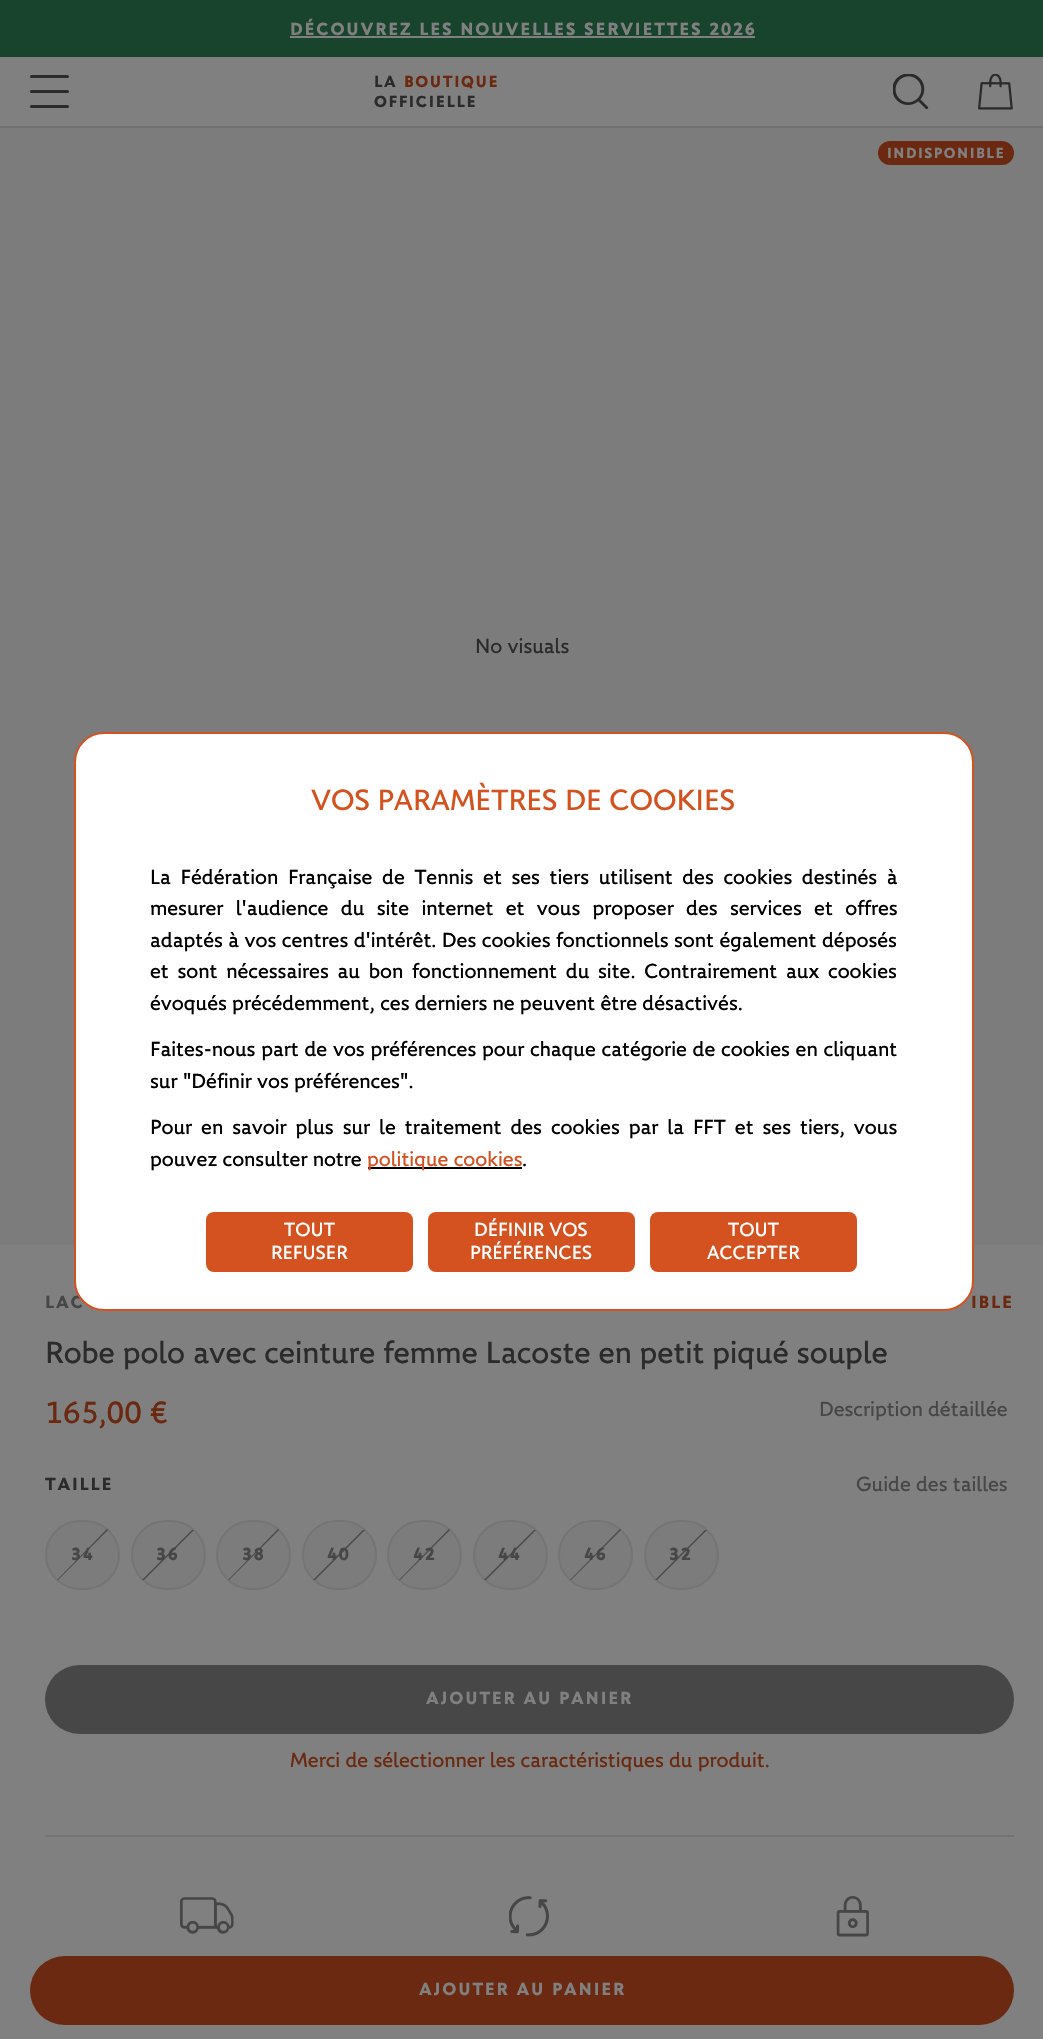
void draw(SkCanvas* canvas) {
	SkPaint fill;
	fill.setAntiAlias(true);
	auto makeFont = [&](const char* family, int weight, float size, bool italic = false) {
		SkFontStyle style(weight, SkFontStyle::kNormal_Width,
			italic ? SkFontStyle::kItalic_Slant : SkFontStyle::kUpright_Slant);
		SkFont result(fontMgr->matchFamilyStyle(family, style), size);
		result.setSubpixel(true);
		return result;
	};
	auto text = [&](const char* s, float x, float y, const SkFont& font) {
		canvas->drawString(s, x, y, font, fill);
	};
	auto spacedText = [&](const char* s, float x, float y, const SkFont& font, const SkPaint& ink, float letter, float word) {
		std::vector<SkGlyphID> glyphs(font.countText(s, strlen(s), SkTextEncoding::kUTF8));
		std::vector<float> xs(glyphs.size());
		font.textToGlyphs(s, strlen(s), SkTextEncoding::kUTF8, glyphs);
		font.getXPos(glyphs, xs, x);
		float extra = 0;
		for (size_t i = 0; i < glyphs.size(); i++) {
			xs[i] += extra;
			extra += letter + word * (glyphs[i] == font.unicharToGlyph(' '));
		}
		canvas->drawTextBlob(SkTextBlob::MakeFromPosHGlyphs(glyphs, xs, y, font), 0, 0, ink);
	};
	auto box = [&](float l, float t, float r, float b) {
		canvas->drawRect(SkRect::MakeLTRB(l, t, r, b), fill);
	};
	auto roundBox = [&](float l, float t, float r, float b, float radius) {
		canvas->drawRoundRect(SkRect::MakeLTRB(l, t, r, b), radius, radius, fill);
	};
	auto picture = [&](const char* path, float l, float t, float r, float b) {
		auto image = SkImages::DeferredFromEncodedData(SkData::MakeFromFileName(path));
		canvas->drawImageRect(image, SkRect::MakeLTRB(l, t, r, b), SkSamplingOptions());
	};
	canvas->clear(0xFF808080);
	fill.setColor(0xFF18432C);
	box(0, 0, 1043, 57);
	fill.setColor(0xFF808080);
	box(290, 36, 755, 38);
	fill.setColor(0xFF707070);
	box(0, 126, 1043, 128);
	fill.setColor(0xFF2B2B2B);
	roundBox(30, 75, 69, 78, 1.5f);
	roundBox(30, 90, 69, 93, 1.5f);
	roundBox(30, 105, 69, 108, 1.5f);
	picture("image0.png", 893, 74, 929, 110);
	picture("image1.png", 978, 74, 1013, 110);
	fill.setColor(0xFF7C7C7C);
	box(0, 128, 1043, 1245);
	fill.setColor(0xFF6A2910);
	roundBox(878, 141, 1014, 165, 12);
	fill.setColor(0xFF7C7C7C);
	canvas->drawRoundRect(SkRect::MakeLTRB(46, 1521, 119, 1589), 34, 34, fill);
	fill.setStyle(SkPaint::kStroke_Style);
	fill.setStrokeWidth(2);
	fill.setColor(0xFF747474);
	canvas->drawRoundRect(SkRect::MakeLTRB(46, 1521, 119, 1589), 34, 34, fill);
	fill.setStyle(SkPaint::kFill_Style);
	fill.setColor(0xFF474747);
	canvas->drawPath(SkPathBuilder().moveTo(58, 1580).lineTo(57, 1580).lineTo(107, 1529).lineTo(108, 1530).close().detach(), fill);
	fill.setColor(0xFF7C7C7C);
	canvas->drawRoundRect(SkRect::MakeLTRB(132, 1521, 205, 1589), 34, 34, fill);
	fill.setStyle(SkPaint::kStroke_Style);
	fill.setColor(0xFF747474);
	canvas->drawRoundRect(SkRect::MakeLTRB(132, 1521, 205, 1589), 34, 34, fill);
	fill.setStyle(SkPaint::kFill_Style);
	fill.setColor(0xFF474747);
	canvas->drawPath(SkPathBuilder().moveTo(144, 1580).lineTo(142, 1580).lineTo(192, 1530).lineTo(194, 1530).close().detach(), fill);
	fill.setColor(0xFF7C7C7C);
	canvas->drawRoundRect(SkRect::MakeLTRB(217, 1521, 290, 1589), 34, 34, fill);
	fill.setStyle(SkPaint::kStroke_Style);
	fill.setColor(0xFF747474);
	canvas->drawRoundRect(SkRect::MakeLTRB(217, 1521, 290, 1589), 34, 34, fill);
	fill.setStyle(SkPaint::kFill_Style);
	fill.setColor(0xFF474747);
	canvas->drawPath(SkPathBuilder().moveTo(229, 1580).lineTo(228, 1580).lineTo(278, 1529).lineTo(279, 1530).close().detach(), fill);
	fill.setColor(0xFF7C7C7C);
	canvas->drawRoundRect(SkRect::MakeLTRB(303, 1521, 376, 1589), 34, 34, fill);
	fill.setStyle(SkPaint::kStroke_Style);
	fill.setColor(0xFF747474);
	canvas->drawRoundRect(SkRect::MakeLTRB(303, 1521, 376, 1589), 34, 34, fill);
	fill.setStyle(SkPaint::kFill_Style);
	fill.setColor(0xFF474747);
	canvas->drawPath(SkPathBuilder().moveTo(315, 1580).lineTo(313, 1580).lineTo(363, 1530).lineTo(365, 1530).close().detach(), fill);
	fill.setColor(0xFF7C7C7C);
	canvas->drawRoundRect(SkRect::MakeLTRB(388, 1521, 461, 1589), 34, 34, fill);
	fill.setStyle(SkPaint::kStroke_Style);
	fill.setColor(0xFF747474);
	canvas->drawRoundRect(SkRect::MakeLTRB(388, 1521, 461, 1589), 34, 34, fill);
	fill.setStyle(SkPaint::kFill_Style);
	fill.setColor(0xFF474747);
	canvas->drawPath(SkPathBuilder().moveTo(400, 1580).lineTo(399, 1580).lineTo(449, 1529).lineTo(450, 1530).close().detach(), fill);
	fill.setColor(0xFF7C7C7C);
	canvas->drawRoundRect(SkRect::MakeLTRB(474, 1521, 547, 1589), 34, 34, fill);
	fill.setStyle(SkPaint::kStroke_Style);
	fill.setColor(0xFF747474);
	canvas->drawRoundRect(SkRect::MakeLTRB(474, 1521, 547, 1589), 34, 34, fill);
	fill.setStyle(SkPaint::kFill_Style);
	fill.setColor(0xFF474747);
	canvas->drawPath(SkPathBuilder().moveTo(486, 1580).lineTo(484, 1580).lineTo(534, 1530).lineTo(536, 1530).close().detach(), fill);
	fill.setColor(0xFF7C7C7C);
	canvas->drawRoundRect(SkRect::MakeLTRB(559, 1521, 632, 1589), 34, 34, fill);
	fill.setStyle(SkPaint::kStroke_Style);
	fill.setColor(0xFF747474);
	canvas->drawRoundRect(SkRect::MakeLTRB(559, 1521, 632, 1589), 34, 34, fill);
	fill.setStyle(SkPaint::kFill_Style);
	fill.setColor(0xFF474747);
	canvas->drawPath(SkPathBuilder().moveTo(571, 1580).lineTo(570, 1580).lineTo(620, 1529).lineTo(621, 1530).close().detach(), fill);
	fill.setColor(0xFF7C7C7C);
	canvas->drawRoundRect(SkRect::MakeLTRB(645, 1521, 718, 1589), 34, 34, fill);
	fill.setStyle(SkPaint::kStroke_Style);
	fill.setColor(0xFF747474);
	canvas->drawRoundRect(SkRect::MakeLTRB(645, 1521, 718, 1589), 34, 34, fill);
	fill.setStyle(SkPaint::kFill_Style);
	fill.setColor(0xFF474747);
	canvas->drawPath(SkPathBuilder().moveTo(657, 1580).lineTo(655, 1580).lineTo(705, 1530).lineTo(707, 1530).close().detach(), fill);
	roundBox(45, 1665, 1014, 1734, 34.5f);
	fill.setColor(0xFF747474);
	box(45, 1835, 1014, 1837);
	picture("image2.png", 180, 1897, 234, 1934);
	picture("image3.png", 509, 1896, 549, 1937);
	picture("image4.png", 836, 1896, 869, 1937);
	fill.setColor(0xFF6A2910);
	roundBox(30, 1956, 1014, 2025, 34.5f);
	auto font1 = makeFont("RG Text", 700, 18);
	fill.setColor(0xFF808080);
	spacedText("DÉCOUVREZ LES NOUVELLES SERVIETTES 2026", 290, 35, font1, fill, 1.8f, 0);
	auto font2 = makeFont("RG Text", 700, 16.5f);
	fill.setColor(0xFF2B2B2B);
	spacedText("LA", 374, 87, font2, fill, 1.6f, 0);
	fill.setColor(0xFF6A2910);
	spacedText("BOUTIQUE", 404, 87, font2, fill, 1.6f, 0);
	fill.setColor(0xFF2B2B2B);
	spacedText("OFFICIELLE", 374, 107, font2, fill, 1.6f, 0);
	auto font3 = makeFont("RG Text", 700, 15);
	fill.setColor(0xFF808080);
	spacedText("INDISPONIBLE", 887, 158, font3, fill, 1.5f, 0);
	auto font4 = makeFont("RG Text", 400, 21);
	fill.setColor(0xFF2B2B2B);
	text("No visuals", 475, 653, font4);
	fill.setColor(0xFF474747);
	spacedText("LAC", 45, 1308, font1, fill, 1.8f, 0);
	fill.setColor(0xFF6A2910);
	spacedText("IBLE", 971, 1308, font1, fill, 1.8f, 0);
	auto font5 = makeFont("RG Text", 400, 31.5f);
	fill.setColor(0xFF2B2B2B);
	text("Robe polo avec ceinture femme Lacoste en petit piqué souple", 45, 1363, font5);
	fill.setColor(0xFF6A2910);
	text("165,00 €", 45, 1423, font5);
	fill.setColor(0xFF474747);
	text("Description détaillée", 819, 1416, font4);
	fill.setColor(0xFF2B2B2B);
	spacedText("TAILLE", 45, 1490, font1, fill, 1.8f, 0);
	fill.setColor(0xFF474747);
	text("Guide des tailles", 856, 1491, font4);
	spacedText("34", 71, 1560, font1, fill, 1.8f, 0);
	spacedText("36", 156, 1560, font1, fill, 1.8f, 0);
	spacedText("38", 242, 1560, font1, fill, 1.8f, 0);
	spacedText("40", 327, 1560, font1, fill, 1.8f, 0);
	spacedText("42", 413, 1560, font1, fill, 1.8f, 0);
	spacedText("44", 498, 1560, font1, fill, 1.8f, 0);
	spacedText("46", 584, 1560, font1, fill, 1.8f, 0);
	spacedText("32", 669, 1560, font1, fill, 1.8f, 0);
	fill.setColor(0xFF808080);
	spacedText("AJOUTER AU PANIER", 426, 1704, font1, fill, 1.8f, 0);
	fill.setColor(0xFF6A2910);
	text("Merci de sélectionner les caractéristiques du produit.", 290, 1767, font4);
	fill.setColor(0xFF808080);
	spacedText("AJOUTER AU PANIER", 419, 1995, font1, fill, 1.8f, 0);
	fill.setColor(0xFFFFFFFF);
	canvas->drawRoundRect(SkRect::MakeLTRB(75, 733, 973, 1310), 29, 29, fill);
	fill.setStyle(SkPaint::kStroke_Style);
	fill.setColor(0xFFD35220);
	canvas->drawRoundRect(SkRect::MakeLTRB(75, 733, 973, 1310), 29, 29, fill);
	auto font6 = makeFont("RG Text", 400, 30);
	fill.setStyle(SkPaint::kFill_Style);
	text("VOS PARAMÈTRES DE COOKIES", 311, 810, font6);
	fill.setColor(0xFF000000);
	spacedText("La Fédération Française de Tennis et ses tiers utilisent des cookies destinés à", 150, 884, font4, fill, 0, 4.4f);
	spacedText("mesurer l'audience du site internet et vous proposer des services et offres", 150, 915, font4, fill, 0, 7.1f);
	spacedText("adaptés à vos centres d'intérêt. Des cookies fonctionnels sont également déposés", 150, 947, font4, fill, 0, 0.25f);
	spacedText("et sont nécessaires au bon fonctionnement du site. Contrairement aux cookies", 150, 978, font4, fill, 0, 3.5f);
	text("évoqués précédemment, ces derniers ne peuvent être désactivés.", 150, 1010, font4);
	spacedText("Faites-nous part de vos préférences pour chaque catégorie de cookies en cliquant", 150, 1056, font4, fill, 0, 0.5f);
	text("sur \"Définir vos préférences\".", 150, 1088, font4);
	spacedText("Pour en savoir plus sur le traitement des cookies par la FFT et ses tiers, vous", 150, 1134, font4, fill, 0, 3.75f);
	text("pouvez consulter notre", 150, 1166, font4);
	box(368, 1167, 522, 1169);
	fill.setColor(0xFFD35220);
	text("politique cookies", 367, 1166, font4);
	fill.setColor(0xFF000000);
	text(".", 522, 1166, font4);
	fill.setColor(0xFFD35220);
	roundBox(206, 1212, 413, 1272, 8);
	auto font7 = makeFont("RG Text", 400, 19.5f);
	fill.setColor(0xFFFFFFFF);
	text("TOUT", 284, 1236, font7);
	text("REFUSER", 271, 1259, font7);
	fill.setColor(0xFFD35220);
	roundBox(428, 1212, 635, 1272, 8);
	fill.setColor(0xFFFFFFFF);
	text("DÉFINIR VOS", 474, 1236, font7);
	text("PRÉFÉRENCES", 470, 1259, font7);
	fill.setColor(0xFFD35220);
	roundBox(650, 1212, 857, 1272, 8);
	fill.setColor(0xFFFFFFFF);
	text("TOUT", 728, 1236, font7);
	text("ACCEPTER", 707, 1259, font7);
}
